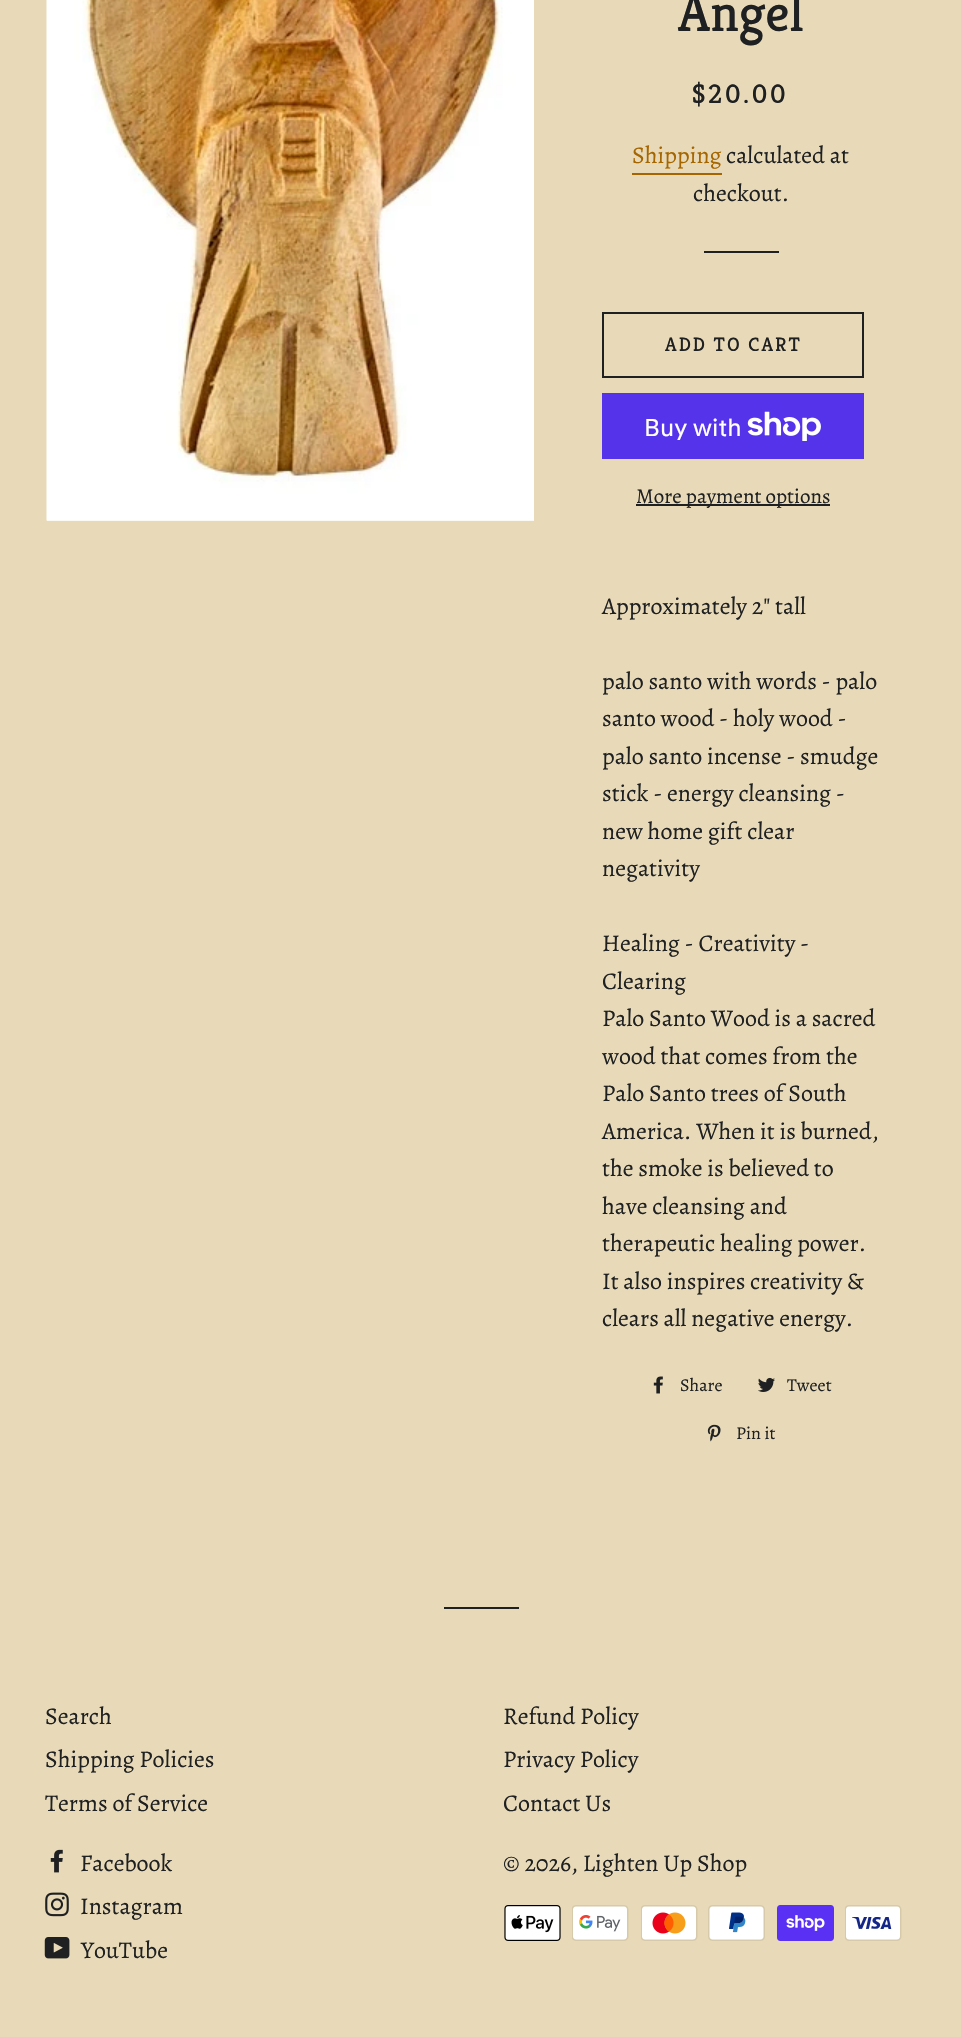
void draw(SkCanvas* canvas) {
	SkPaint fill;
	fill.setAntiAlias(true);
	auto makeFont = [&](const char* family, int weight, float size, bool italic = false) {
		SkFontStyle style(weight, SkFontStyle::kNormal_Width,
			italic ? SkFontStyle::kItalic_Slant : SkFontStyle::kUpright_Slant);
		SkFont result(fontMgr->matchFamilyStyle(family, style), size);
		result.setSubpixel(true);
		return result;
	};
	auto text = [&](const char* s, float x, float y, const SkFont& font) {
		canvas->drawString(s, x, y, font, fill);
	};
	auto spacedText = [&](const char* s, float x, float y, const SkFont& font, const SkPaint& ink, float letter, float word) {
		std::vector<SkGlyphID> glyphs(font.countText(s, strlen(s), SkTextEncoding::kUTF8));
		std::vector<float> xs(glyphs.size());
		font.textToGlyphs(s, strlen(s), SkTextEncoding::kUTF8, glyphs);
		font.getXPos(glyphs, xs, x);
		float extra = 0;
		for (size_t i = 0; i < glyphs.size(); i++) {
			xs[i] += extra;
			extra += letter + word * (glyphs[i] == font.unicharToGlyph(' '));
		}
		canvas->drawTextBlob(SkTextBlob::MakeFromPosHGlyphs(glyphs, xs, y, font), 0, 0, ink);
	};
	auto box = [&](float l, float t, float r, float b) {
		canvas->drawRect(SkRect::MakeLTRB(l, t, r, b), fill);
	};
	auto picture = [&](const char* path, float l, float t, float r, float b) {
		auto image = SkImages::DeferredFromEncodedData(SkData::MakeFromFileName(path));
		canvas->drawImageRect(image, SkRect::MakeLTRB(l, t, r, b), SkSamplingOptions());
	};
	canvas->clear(0xFFE8DAB8);
	fill.setColor(0xFFF5F2E8);
	box(47, 520, 534, 521);
	picture("image0.png", 46, 0, 534, 521);
	fill.setColor(0xFFA56600);
	box(632, 173, 722, 175);
	fill.setColor(0xFF1F2021);
	box(704, 251, 779, 253);
	fill.setStyle(SkPaint::kStroke_Style);
	fill.setStrokeWidth(2);
	canvas->drawRect(SkRect::MakeLTRB(603, 313, 863, 377), fill);
	fill.setStyle(SkPaint::kFill_Style);
	fill.setColor(0xFF5433EB);
	box(602, 393, 864, 459);
	picture("image1.png", 747, 411, 821, 441);
	fill.setColor(0xFF1F2021);
	box(636, 504, 830, 506);
	picture("image2.png", 653, 1376, 663, 1394);
	picture("image3.png", 758, 1377, 775, 1392);
	picture("image4.png", 707, 1424, 721, 1442);
	box(444, 1607, 519, 1609);
	picture("image5.png", 50, 1849, 63, 1873);
	picture("image6.png", 45, 1892, 69, 1917);
	picture("image7.png", 44, 1937, 70, 1959);
	picture("image8.png", 504, 1905, 561, 1941);
	picture("image9.png", 572, 1905, 629, 1941);
	picture("image10.png", 641, 1905, 698, 1941);
	picture("image11.png", 708, 1905, 765, 1941);
	picture("image12.png", 777, 1905, 834, 1941);
	picture("image13.png", 845, 1905, 902, 1941);
	auto font1 = makeFont("Kreon", 400, 54);
	text("Angel", 678, 31, font1);
	auto font2 = makeFont("Kreon", 400, 27);
	spacedText("$20.00", 692, 103, font2, fill, 2.75f, 0);
	auto font3 = makeFont("Alegreya", 400, 24);
	fill.setColor(0xFFA56600);
	text("Shipping", 632, 163, font3);
	fill.setColor(0xFF1F2021);
	text("calculated at", 726, 163, font3);
	text("checkout.", 693, 201, font3);
	auto font4 = makeFont("Kreon", 400, 19.5f);
	spacedText("ADD TO CART", 665, 351, font4, fill, 2, 0);
	auto font5 = makeFont("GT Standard", 400, 24);
	fill.setColor(0xFFFFFFFF);
	text("Buy with", 644, 436, font5);
	auto font6 = makeFont("Alegreya", 400, 21);
	fill.setColor(0xFF1F2021);
	text("More payment options", 636, 503, font6);
	text("Approximately 2\" tall", 602, 614, font3);
	text("palo santo with words - palo", 602, 689, font3);
	text("santo wood - holy wood -", 602, 726, font3);
	text("palo santo incense - smudge", 602, 764, font3);
	text("stick - energy cleansing -", 602, 801, font3);
	text("new home gift clear", 602, 839, font3);
	text("negativity", 602, 876, font3);
	text("Healing - Creativity -", 602, 951, font3);
	text("Clearing", 602, 989, font3);
	text("Palo Santo Wood is a sacred", 602, 1026, font3);
	text("wood that comes from the", 602, 1064, font3);
	text("Palo Santo trees of South", 602, 1101, font3);
	text("America. When it is burned,", 602, 1139, font3);
	text("the smoke is believed to", 602, 1176, font3);
	text("have cleansing and", 602, 1214, font3);
	text("therapeutic healing power.", 602, 1251, font3);
	text("It also inspires creativity &", 602, 1289, font3);
	text("clears all negative energy.", 602, 1326, font3);
	auto font7 = makeFont("Alegreya", 400, 18);
	text("Share", 680, 1391, font7);
	text("Tweet", 787, 1391, font7);
	text("Pin it", 736, 1439, font7);
	text("Search", 45, 1724, font3);
	text("Shipping Policies", 45, 1767, font3);
	text("Terms of Service", 45, 1811, font3);
	text("Refund Policy", 503, 1724, font3);
	text("Privacy Policy", 503, 1767, font3);
	text("Contact Us", 503, 1811, font3);
	text("Facebook", 80, 1871, font3);
	text("Instagram", 80, 1914, font3);
	text("YouTube", 81, 1958, font3);
	text("© 2026, Lighten Up Shop", 503, 1871, font3);
}
